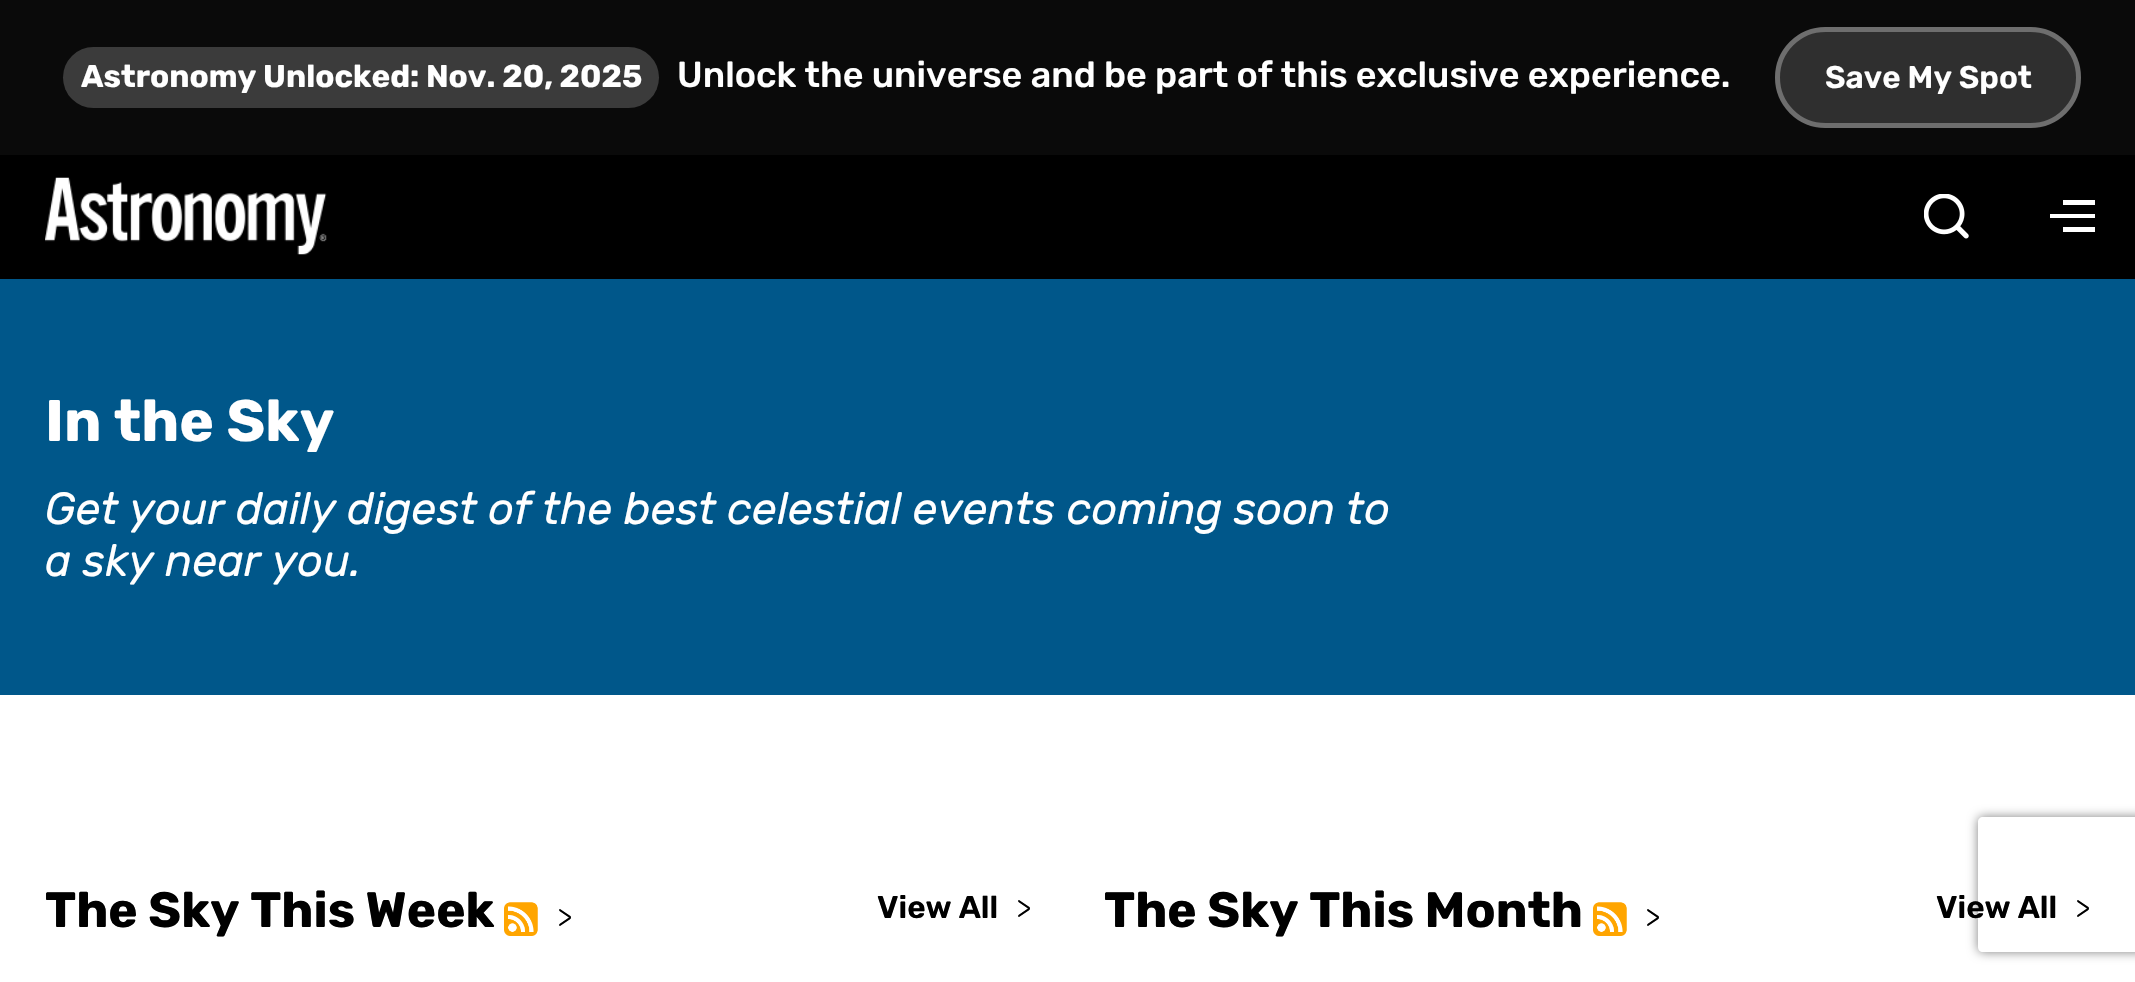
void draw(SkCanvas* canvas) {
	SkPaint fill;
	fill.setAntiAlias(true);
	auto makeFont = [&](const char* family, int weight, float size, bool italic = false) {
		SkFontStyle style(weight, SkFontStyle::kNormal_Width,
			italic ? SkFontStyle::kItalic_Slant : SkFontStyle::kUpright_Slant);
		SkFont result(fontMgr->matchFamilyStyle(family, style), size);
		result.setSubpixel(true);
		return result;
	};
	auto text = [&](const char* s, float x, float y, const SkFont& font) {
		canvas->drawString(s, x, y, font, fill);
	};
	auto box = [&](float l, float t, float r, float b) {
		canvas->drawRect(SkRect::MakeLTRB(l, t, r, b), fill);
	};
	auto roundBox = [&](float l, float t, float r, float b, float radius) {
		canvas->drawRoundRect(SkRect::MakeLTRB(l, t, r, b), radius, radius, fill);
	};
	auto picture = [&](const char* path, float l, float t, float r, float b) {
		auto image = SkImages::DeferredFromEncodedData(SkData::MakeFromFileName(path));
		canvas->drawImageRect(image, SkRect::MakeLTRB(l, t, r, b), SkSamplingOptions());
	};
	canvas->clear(0xFFFFFFFF);
	fill.setColor(0xFF0A0A0A);
	box(0, 0, 2135, 155);
	fill.setColor(0xFF3B3B3B);
	roundBox(63, 47, 659, 108, 30.5f);
	fill.setColor(0xFF2F2F2F);
	roundBox(1775, 27, 2081, 128, 50.5f);
	fill.setStyle(SkPaint::kStroke_Style);
	fill.setStrokeWidth(5);
	fill.setColor(0x4DFFFFFF);
	canvas->drawRoundRect(SkRect::MakeLTRB(1777.5f, 29.5f, 2078.5f, 125.5f), 48, 48, fill);
	fill.setStyle(SkPaint::kFill_Style);
	fill.setColor(0xFF000000);
	box(0, 155, 2135, 279);
	picture("image0.png", 45, 177, 327, 255);
	picture("image1.png", 1924, 194, 1969, 239);
	canvas->save();
	canvas->clipRect(SkRect::MakeLTRB(2050, 200, 2095, 232));
	fill.setColor(0xFFFFFFFF);
	canvas->drawPath(SkPathBuilder(SkPathFillType::kEvenOdd).moveTo(2117, 227).lineTo(2117, 232).lineTo(2063, 232).lineTo(2063, 227).close().moveTo(2117, 214).lineTo(2117, 218).lineTo(2050, 218).lineTo(2050, 214).close().moveTo(2117, 200).lineTo(2117, 205).lineTo(2063, 205).lineTo(2063, 200).close().detach(), fill);
	canvas->restore();
	fill.setColor(0xFF00578A);
	box(0, 279, 2135, 695);
	picture("image2.png", 504, 902, 538, 936);
	picture("image2.png", 1593, 902, 1627, 936);
	canvas->save();
	canvas->clipPath(SkPathBuilder(SkPathFillType::kEvenOdd).moveTo(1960, 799).lineTo(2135, 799).lineTo(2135, 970).lineTo(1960, 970).close().moveTo(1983, 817).lineTo(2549, 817).cubicTo(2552, 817, 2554, 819, 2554, 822).lineTo(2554, 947).cubicTo(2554, 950, 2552, 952, 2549, 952).lineTo(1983, 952).cubicTo(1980, 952, 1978, 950, 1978, 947).lineTo(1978, 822).cubicTo(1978, 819, 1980, 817, 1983, 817).close().detach(), true);
	fill.setColor(0xFF808080);
	fill.setMaskFilter(SkMaskFilter::MakeBlur(kNormal_SkBlurStyle, 5.5f));
	canvas->drawRoundRect(SkRect::MakeLTRB(1978, 817, 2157, 952), 5, 5, fill);
	fill.setMaskFilter(nullptr);
	canvas->restore();
	auto font1 = makeFont("Rubik", 700, 31.5f);
	fill.setColor(0xFFFFFFFF);
	text("Astronomy Unlocked: Nov. 20, 2025", 81, 87, font1);
	auto font2 = makeFont("Rubik", 500, 36);
	text("Unlock the universe and be part of this exclusive experience.", 677, 87, font2);
	auto font3 = makeFont("Rubik", 600, 31.5f);
	text("Save My Spot", 1825, 88, font3);
	auto font4 = makeFont("Rubik", 700, 58.5f);
	text("In the Sky", 45, 441, font4);
	auto font5 = makeFont("Rubik", 400, 45, true);
	text("Get your daily digest of the best celestial events coming soon to", 45, 524, font5);
	text("a sky near you.", 45, 576, font5);
	auto font6 = makeFont("Rubik", 700, 49.5f);
	fill.setColor(0xFF000000);
	text("The Sky This Week", 45, 927, font6);
	auto font7 = makeFont("Rubik", 300, 31.5f);
	text(">", 557, 927, font7);
	text("View All", 877, 918, font3);
	text(">", 1016, 918, font7);
	text("The Sky This Month", 1104, 927, font6);
	text(">", 1645, 927, font7);
	text("View All", 1936, 918, font3);
	text(">", 2075, 918, font7);
}
